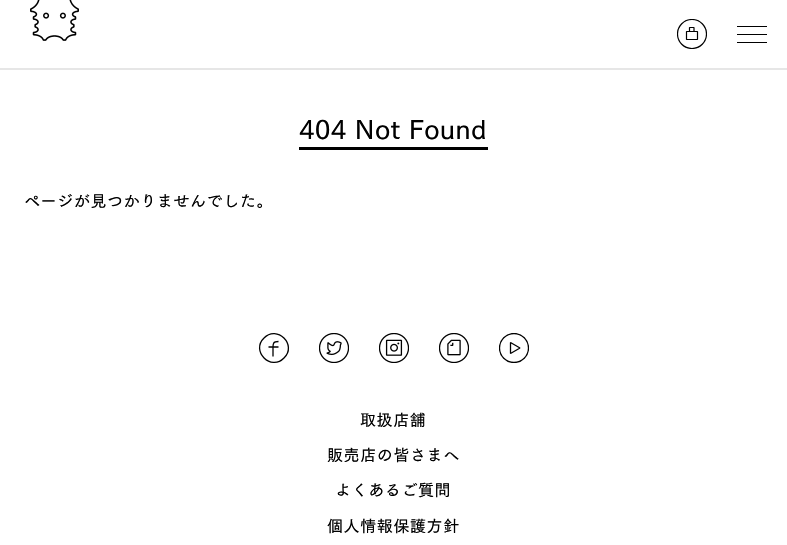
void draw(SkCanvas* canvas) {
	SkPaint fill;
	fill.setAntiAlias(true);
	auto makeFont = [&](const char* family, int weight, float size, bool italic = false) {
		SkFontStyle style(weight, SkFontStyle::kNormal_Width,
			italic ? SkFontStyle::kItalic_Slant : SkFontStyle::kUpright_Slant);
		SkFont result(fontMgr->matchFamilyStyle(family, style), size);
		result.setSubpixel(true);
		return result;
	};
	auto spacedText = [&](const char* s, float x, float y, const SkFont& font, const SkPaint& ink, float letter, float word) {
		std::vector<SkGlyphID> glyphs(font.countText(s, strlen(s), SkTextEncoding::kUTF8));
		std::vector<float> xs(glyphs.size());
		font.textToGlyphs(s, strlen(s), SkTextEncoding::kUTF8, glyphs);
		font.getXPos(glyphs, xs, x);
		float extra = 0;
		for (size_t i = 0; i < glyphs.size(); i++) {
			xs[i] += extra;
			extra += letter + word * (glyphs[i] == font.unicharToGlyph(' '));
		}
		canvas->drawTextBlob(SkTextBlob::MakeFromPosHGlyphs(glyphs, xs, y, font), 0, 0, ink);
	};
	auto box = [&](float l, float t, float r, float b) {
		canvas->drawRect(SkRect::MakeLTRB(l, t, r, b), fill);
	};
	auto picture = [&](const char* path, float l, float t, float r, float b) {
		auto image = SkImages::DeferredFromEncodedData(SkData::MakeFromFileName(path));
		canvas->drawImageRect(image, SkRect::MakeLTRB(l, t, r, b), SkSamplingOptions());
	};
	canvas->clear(0xFFFFFFFF);
	fill.setColor(0xFFE6E6E6);
	box(0, 68, 787, 70);
	picture("image0.png", 30, 0, 79, 41);
	fill.setStyle(SkPaint::kStroke_Style);
	fill.setStrokeWidth(1.2f);
	fill.setStrokeJoin(SkPaint::kBevel_Join);
	fill.setColor(0xFF000000);
	canvas->drawPath(SkPathBuilder().moveTo(686.5f, 31.5f).lineTo(697.5f, 31.5f).lineTo(697.5f, 39.5f).lineTo(686.5f, 39.5f).close().moveTo(689.5f, 31).lineTo(689.5f, 27.5f).lineTo(694, 27.5f).lineTo(694, 31.5f).detach(), fill);
	canvas->save();
	canvas->clipRect(SkRect::MakeLTRB(677, 19, 707, 49));
	fill.setStrokeJoin(SkPaint::kMiter_Join);
	canvas->drawCircle(692, 34, 14.5f, fill);
	canvas->restore();
	fill.setStyle(SkPaint::kFill_Style);
	box(737, 26, 767, 27);
	box(737, 34, 767, 35);
	box(737, 42, 767, 43);
	box(299, 147, 488, 150);
	fill.setStyle(SkPaint::kStroke_Style);
	fill.setStrokeWidth(1.3f);
	fill.setStrokeJoin(SkPaint::kBevel_Join);
	canvas->drawPath(SkPathBuilder().moveTo(264, 338).cubicTo(277, 324.5f, 297.5f, 345, 284, 358).cubicTo(271, 371.5f, 250.5f, 351, 264, 338).close().moveTo(268.5f, 347).lineTo(278.5f, 347).moveTo(273, 356.5f).lineTo(273, 349).cubicTo(273, 344, 272.5f, 341.5f, 278.5f, 341.5f).detach(), fill);
	picture("image1.png", 319, 333, 349, 363);
	picture("image2.png", 379, 333, 409, 363);
	picture("image3.png", 439, 333, 469, 363);
	canvas->save();
	canvas->clipRect(SkRect::MakeLTRB(499, 333, 529, 363));
	fill.setStrokeJoin(SkPaint::kMiter_Join);
	canvas->drawCircle(514, 348, 14.5f, fill);
	canvas->restore();
	fill.setStrokeJoin(SkPaint::kBevel_Join);
	canvas->drawPath(SkPathBuilder().moveTo(520, 348).lineTo(510.5f, 342.5f).lineTo(510.5f, 353.5f).close().detach(), fill);
	auto font1 = makeFont("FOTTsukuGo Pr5", 600, 26);
	fill.setStyle(SkPaint::kFill_Style);
	spacedText("404 Not Found", 299, 139, font1, fill, 0.6f, 0);
	auto font2 = makeFont("FOTTsukuGo Pr5", 600, 16);
	spacedText("ページが見つかりませんでした。", 24, 207, font2, fill, 0.6f, 0);
	spacedText("取扱店舗", 360, 426, font2, fill, 0.6f, 0);
	spacedText("販売店の皆さまへ", 327, 461, font2, fill, 0.6f, 0);
	spacedText("よくあるご質問", 335, 496, font2, fill, 0.6f, 0);
	spacedText("個人情報保護方針", 327, 532, font2, fill, 0.6f, 0);
}
